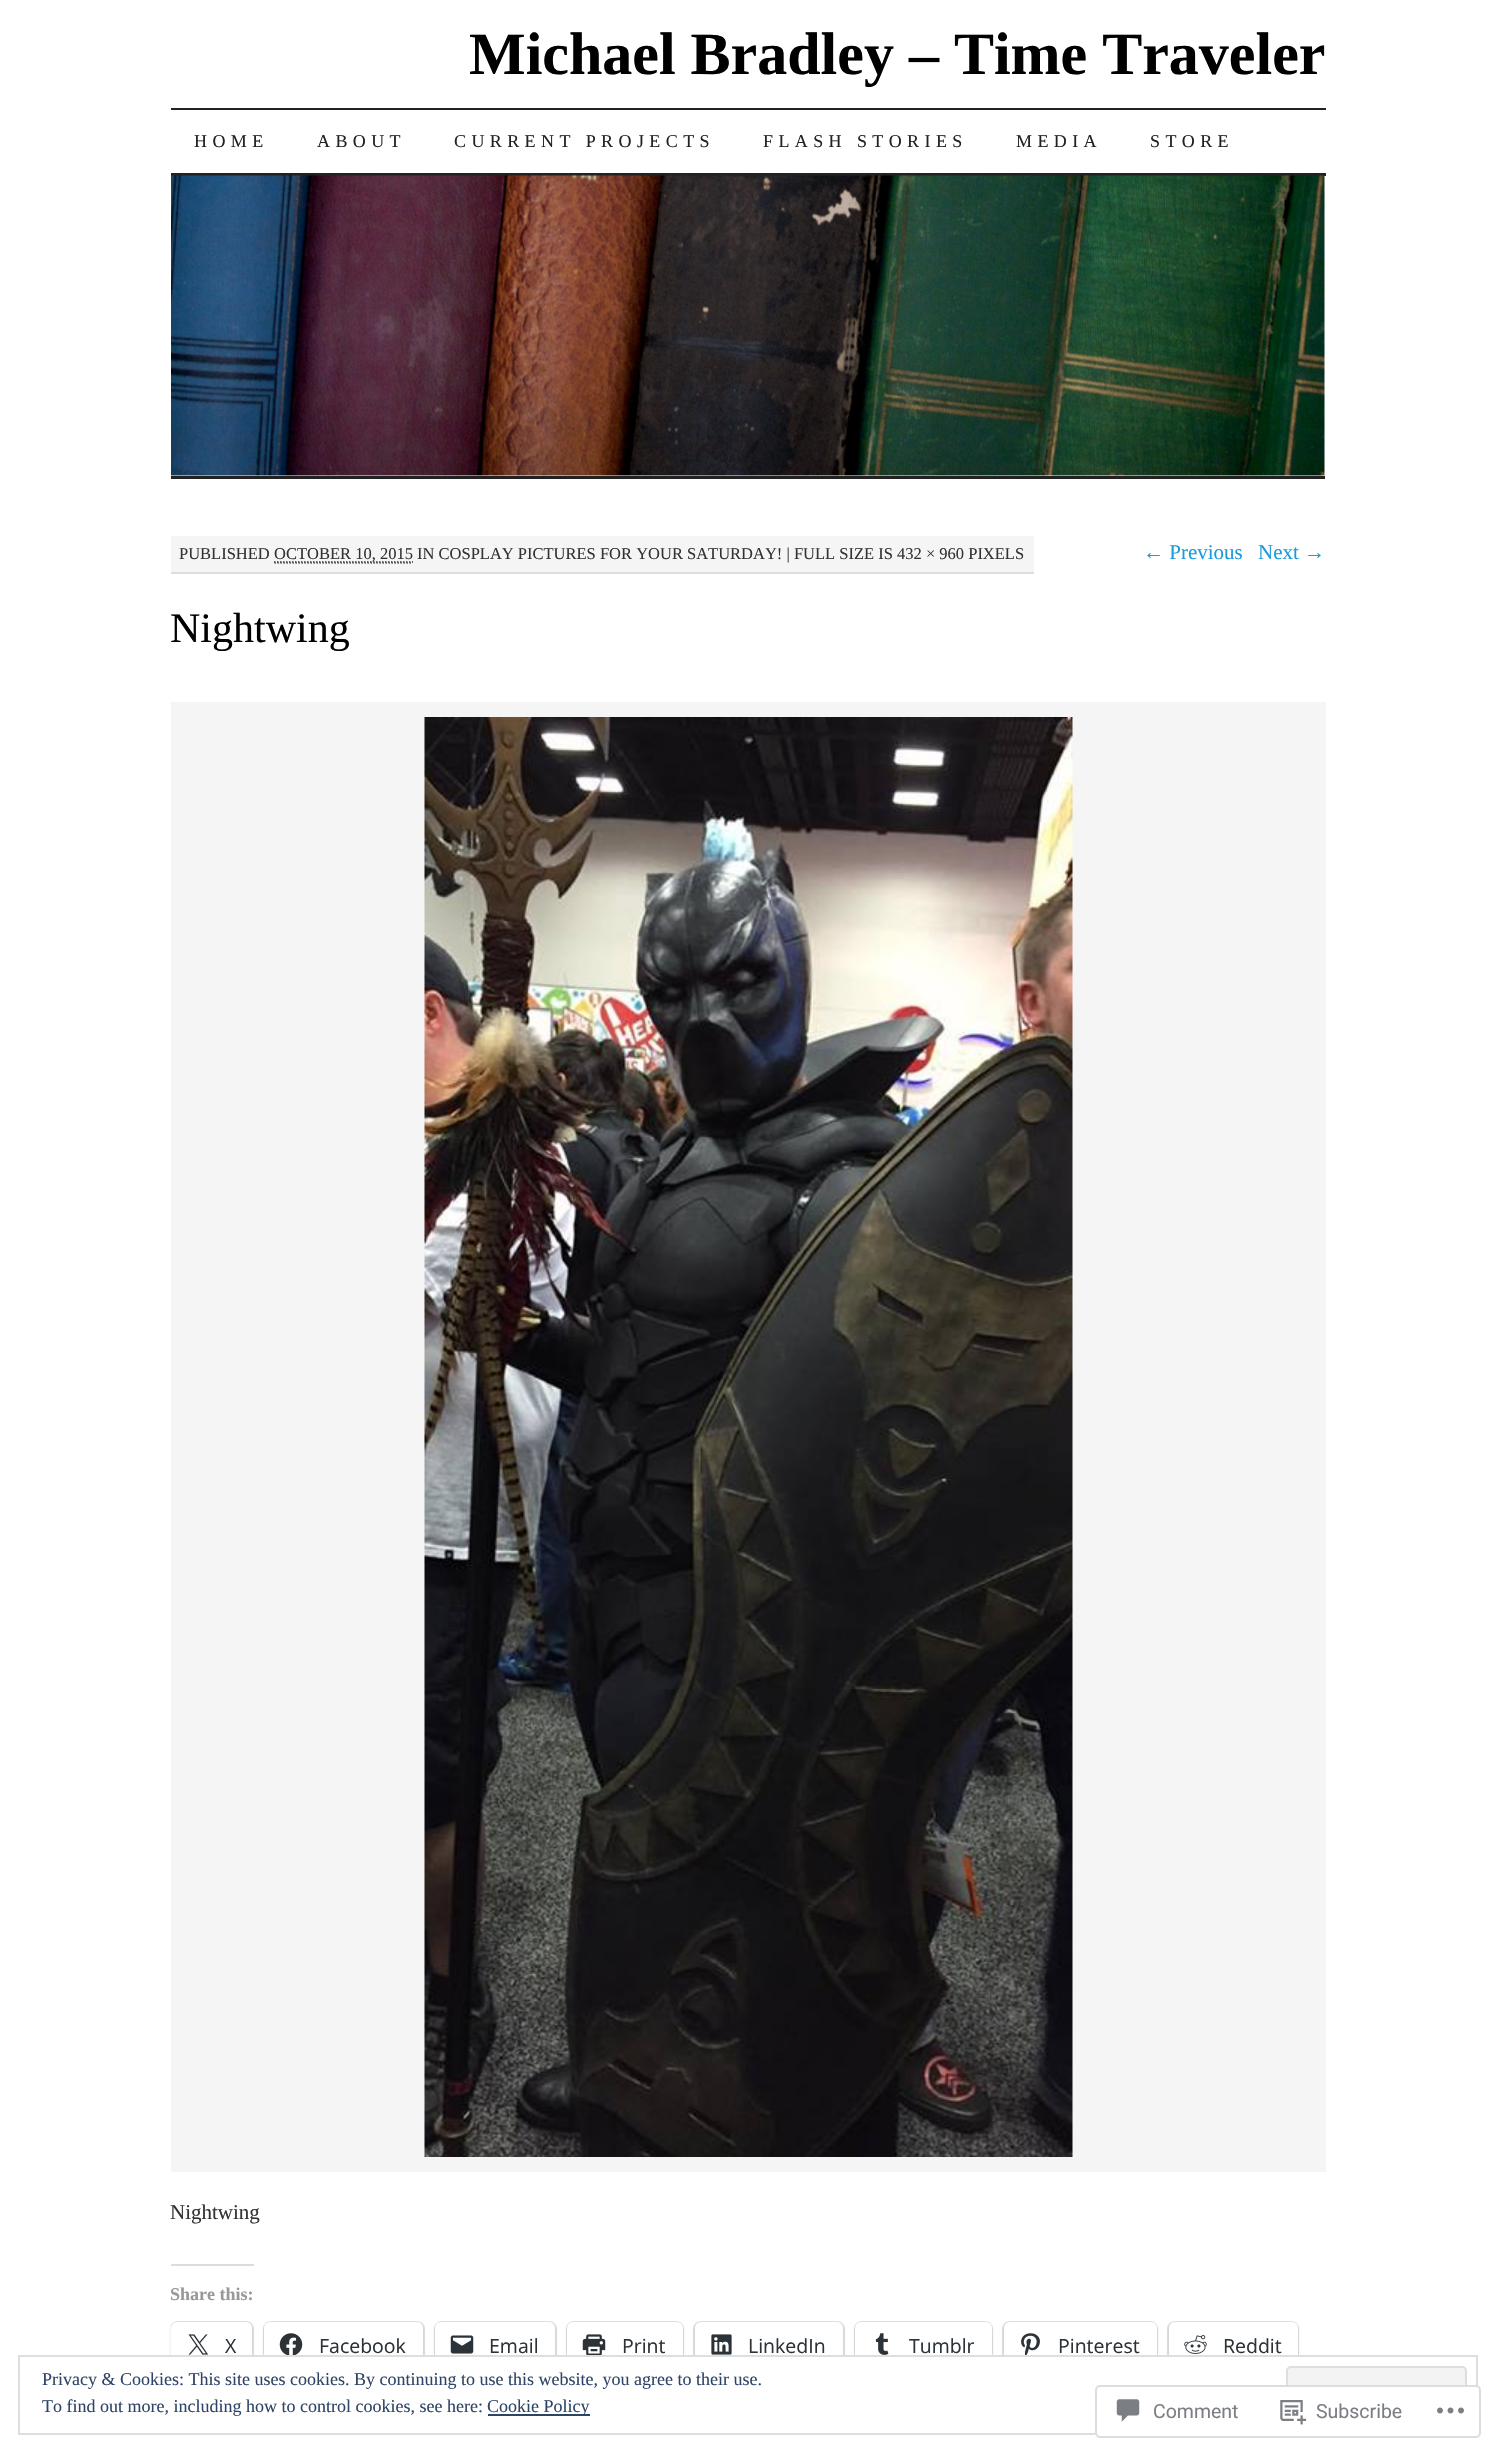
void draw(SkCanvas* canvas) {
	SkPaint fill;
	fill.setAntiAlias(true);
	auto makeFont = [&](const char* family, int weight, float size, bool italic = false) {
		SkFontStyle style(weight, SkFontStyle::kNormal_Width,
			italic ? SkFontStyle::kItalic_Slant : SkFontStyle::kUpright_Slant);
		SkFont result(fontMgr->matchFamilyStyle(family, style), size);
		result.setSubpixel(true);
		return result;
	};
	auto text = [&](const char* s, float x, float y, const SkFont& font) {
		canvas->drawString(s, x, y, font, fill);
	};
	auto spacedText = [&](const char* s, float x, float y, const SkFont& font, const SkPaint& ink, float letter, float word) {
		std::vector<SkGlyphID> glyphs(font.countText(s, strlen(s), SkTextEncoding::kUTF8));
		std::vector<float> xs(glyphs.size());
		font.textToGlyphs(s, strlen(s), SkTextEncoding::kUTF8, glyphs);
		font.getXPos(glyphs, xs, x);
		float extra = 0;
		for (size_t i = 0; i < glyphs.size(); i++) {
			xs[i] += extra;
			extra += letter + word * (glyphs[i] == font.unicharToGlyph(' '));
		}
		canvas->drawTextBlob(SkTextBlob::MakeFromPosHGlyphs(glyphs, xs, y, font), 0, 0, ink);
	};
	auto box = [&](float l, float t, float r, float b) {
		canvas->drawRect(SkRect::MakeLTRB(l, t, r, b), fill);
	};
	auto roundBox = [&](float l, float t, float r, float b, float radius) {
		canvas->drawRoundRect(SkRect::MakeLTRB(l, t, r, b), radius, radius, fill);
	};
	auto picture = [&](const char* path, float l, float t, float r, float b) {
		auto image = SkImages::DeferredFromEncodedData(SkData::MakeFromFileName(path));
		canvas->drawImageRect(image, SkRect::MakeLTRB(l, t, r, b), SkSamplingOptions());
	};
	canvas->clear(0xFFFFFFFF);
	fill.setColor(0xFF222222);
	box(171, 108, 1326, 110);
	box(171, 173, 1326, 176);
	picture("image0.png", 171, 175, 1325, 476);
	box(171, 476, 1325, 479);
	fill.setColor(0xFFF5F5F5);
	box(171, 536, 1034, 572);
	fill.setColor(0xFFDDDDDD);
	box(171, 572, 1034, 574);
	fill.setStyle(SkPaint::kStroke_Style);
	fill.setStrokeWidth(1.5f);
	fill.setColor(0xFF666666);
	fill.setPathEffect(SkDashPathEffect::Make({{1.5f, 1.5f}}, 0));
	canvas->drawPath(SkPathBuilder().moveTo(274.5f, 563).lineTo(412.5f, 563).detach(), fill);
	fill.setPathEffect(nullptr);
	fill.setColor(0xFF333333);
	fill.setPathEffect(SkDashPathEffect::Make({{1.5f, 1.5f}}, 0));
	canvas->drawPath(SkPathBuilder().moveTo(274, 562).lineTo(413, 562).detach(), fill);
	fill.setPathEffect(nullptr);
	fill.setStyle(SkPaint::kFill_Style);
	fill.setColor(0xFFF5F5F5);
	box(171, 702, 1326, 2172);
	picture("image1.png", 424, 717, 1073, 2157);
	fill.setColor(0xFFDCDCDE);
	box(171, 2264, 254, 2266);
	canvas->save();
	canvas->clipRect(SkRect::MakeLTRB(171, 536, 1326, 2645));
	fill.setStyle(SkPaint::kStroke_Style);
	fill.setStrokeWidth(2);
	fill.setColor(0xFFE0E0E0);
	canvas->drawRoundRect(SkRect::MakeLTRB(171, 2322, 253, 2368), 7, 7, fill);
	canvas->restore();
	fill.setStyle(SkPaint::kFill_Style);
	fill.setColor(0x1F000000);
	fill.setMaskFilter(SkMaskFilter::MakeBlur(kNormal_SkBlurStyle, 1.5f));
	canvas->drawRoundRect(SkRect::MakeLTRB(171, 2324, 252, 2369), 6, 6, fill);
	fill.setMaskFilter(nullptr);
	fill.setColor(0xFFFFFFFF);
	roundBox(171, 2322, 252, 2367, 6);
	picture("image2.png", 188, 2334, 209, 2355);
	fill.setStyle(SkPaint::kStroke_Style);
	fill.setColor(0xFFE0E0E0);
	canvas->drawRoundRect(SkRect::MakeLTRB(264, 2322, 424, 2368), 7, 7, fill);
	fill.setStyle(SkPaint::kFill_Style);
	fill.setColor(0x1F000000);
	fill.setMaskFilter(SkMaskFilter::MakeBlur(kNormal_SkBlurStyle, 1.5f));
	canvas->drawRoundRect(SkRect::MakeLTRB(264, 2324, 423, 2369), 6, 6, fill);
	fill.setMaskFilter(nullptr);
	fill.setColor(0xFFFFFFFF);
	roundBox(264, 2322, 423, 2367, 6);
	picture("image3.png", 279, 2333, 303, 2355);
	fill.setStyle(SkPaint::kStroke_Style);
	fill.setColor(0xFFE0E0E0);
	canvas->drawRoundRect(SkRect::MakeLTRB(435, 2322, 556, 2368), 7, 7, fill);
	fill.setStyle(SkPaint::kFill_Style);
	fill.setColor(0x1F000000);
	fill.setMaskFilter(SkMaskFilter::MakeBlur(kNormal_SkBlurStyle, 1.5f));
	canvas->drawRoundRect(SkRect::MakeLTRB(435, 2324, 555, 2369), 6, 6, fill);
	fill.setMaskFilter(nullptr);
	fill.setColor(0xFFFFFFFF);
	roundBox(435, 2322, 555, 2367, 6);
	picture("image4.png", 450, 2335, 474, 2354);
	fill.setStyle(SkPaint::kStroke_Style);
	fill.setColor(0xFFE0E0E0);
	canvas->drawRoundRect(SkRect::MakeLTRB(567, 2322, 683, 2368), 7, 7, fill);
	fill.setStyle(SkPaint::kFill_Style);
	fill.setColor(0x1F000000);
	fill.setMaskFilter(SkMaskFilter::MakeBlur(kNormal_SkBlurStyle, 1.5f));
	canvas->drawRoundRect(SkRect::MakeLTRB(567, 2324, 683, 2369), 6, 6, fill);
	fill.setMaskFilter(nullptr);
	fill.setColor(0xFFFFFFFF);
	roundBox(567, 2322, 683, 2367, 6);
	picture("image5.png", 582, 2334, 606, 2355);
	fill.setStyle(SkPaint::kStroke_Style);
	fill.setColor(0xFFE0E0E0);
	canvas->drawRoundRect(SkRect::MakeLTRB(694, 2322, 844, 2368), 7, 7, fill);
	fill.setStyle(SkPaint::kFill_Style);
	fill.setColor(0x1F000000);
	fill.setMaskFilter(SkMaskFilter::MakeBlur(kNormal_SkBlurStyle, 1.5f));
	canvas->drawRoundRect(SkRect::MakeLTRB(695, 2324, 843, 2369), 6, 6, fill);
	fill.setMaskFilter(nullptr);
	fill.setColor(0xFFFFFFFF);
	roundBox(695, 2322, 843, 2367, 6);
	picture("image6.png", 711, 2334, 732, 2355);
	fill.setStyle(SkPaint::kStroke_Style);
	fill.setColor(0xFFE0E0E0);
	canvas->drawRoundRect(SkRect::MakeLTRB(855, 2322, 992, 2368), 7, 7, fill);
	fill.setStyle(SkPaint::kFill_Style);
	fill.setColor(0x1F000000);
	fill.setMaskFilter(SkMaskFilter::MakeBlur(kNormal_SkBlurStyle, 1.5f));
	canvas->drawRoundRect(SkRect::MakeLTRB(855, 2324, 992, 2369), 6, 6, fill);
	fill.setMaskFilter(nullptr);
	fill.setColor(0xFFFFFFFF);
	roundBox(855, 2322, 992, 2367, 6);
	picture("image7.png", 875, 2333, 889, 2355);
	fill.setStyle(SkPaint::kStroke_Style);
	fill.setColor(0xFFE0E0E0);
	canvas->drawRoundRect(SkRect::MakeLTRB(1003, 2322, 1157, 2368), 7, 7, fill);
	fill.setStyle(SkPaint::kFill_Style);
	fill.setColor(0x1F000000);
	fill.setMaskFilter(SkMaskFilter::MakeBlur(kNormal_SkBlurStyle, 1.5f));
	canvas->drawRoundRect(SkRect::MakeLTRB(1004, 2324, 1157, 2369), 6, 6, fill);
	fill.setMaskFilter(nullptr);
	fill.setColor(0xFFFFFFFF);
	roundBox(1004, 2322, 1157, 2367, 6);
	picture("image8.png", 1021, 2333, 1040, 2355);
	fill.setStyle(SkPaint::kStroke_Style);
	fill.setColor(0xFFE0E0E0);
	canvas->drawRoundRect(SkRect::MakeLTRB(1168, 2322, 1298, 2368), 7, 7, fill);
	fill.setStyle(SkPaint::kFill_Style);
	fill.setColor(0x1F000000);
	fill.setMaskFilter(SkMaskFilter::MakeBlur(kNormal_SkBlurStyle, 1.5f));
	canvas->drawRoundRect(SkRect::MakeLTRB(1169, 2324, 1298, 2369), 6, 6, fill);
	fill.setMaskFilter(nullptr);
	fill.setColor(0xFFFFFFFF);
	roundBox(1169, 2322, 1298, 2367, 6);
	picture("image9.png", 1184, 2335, 1207, 2354);
	box(169, 2357, 1300, 2371);
	fill.setStyle(SkPaint::kStroke_Style);
	fill.setColor(0xFFDEDEDE);
	canvas->drawRect(SkRect::MakeLTRB(19, 2356, 1477, 2434), fill);
	fill.setStyle(SkPaint::kFill_Style);
	fill.setColor(0xFFF3F3F3);
	canvas->drawRoundRect(SkRect::MakeLTRB(1287, 2367, 1466, 2423), 4, 4, fill);
	fill.setStyle(SkPaint::kStroke_Style);
	fill.setColor(0xFFDEDEDE);
	canvas->drawRoundRect(SkRect::MakeLTRB(1287, 2367, 1466, 2423), 4, 4, fill);
	fill.setStyle(SkPaint::kFill_Style);
	fill.setColor(0xFF2E4467);
	box(488, 2414, 590, 2416);
	fill.setColor(0xFAFFFFFF);
	roundBox(1095, 2385, 1481, 2438, 5);
	fill.setStyle(SkPaint::kStroke_Style);
	fill.setColor(0xFADCDCDE);
	canvas->drawRoundRect(SkRect::MakeLTRB(1096, 2386, 1480, 2437), 4, 4, fill);
	picture("image10.png", 1116, 2399, 1140, 2422);
	picture("image11.png", 1280, 2400, 1307, 2425);
	picture("image12.png", 1437, 2407, 1464, 2414);
	auto font1 = makeFont("Liberation Serif", 700, 60);
	fill.setStyle(SkPaint::kFill_Style);
	fill.setColor(0xFF000000);
	text("Michael Bradley – Time Traveler", 469, 74, font1);
	auto font2 = makeFont("Liberation Serif", 400, 18);
	fill.setColor(0xFF222222);
	spacedText("HOME", 194, 147, font2, fill, 5.4f, 0);
	spacedText("ABOUT", 317, 147, font2, fill, 5.4f, 0);
	spacedText("CURRENT PROJECTS", 454, 147, font2, fill, 5.4f, 0);
	spacedText("FLASH STORIES", 763, 147, font2, fill, 5.4f, 0);
	spacedText("MEDIA", 1016, 147, font2, fill, 5.4f, 0);
	spacedText("STORE", 1150, 147, font2, fill, 5.4f, 0);
	auto font3 = makeFont("Liberation Serif", 400, 16.5f);
	fill.setColor(0xFF333333);
	text("PUBLISHED", 179, 559, font3);
	text("OCTOBER 10, 2015 IN COSPLAY PICTURES FOR YOUR SATURDAY! | FULL SIZE IS 432 × 960 PIXELS", 274, 559, font3);
	auto font4 = makeFont("Liberation Serif", 400, 21);
	fill.setColor(0xFF1C9BDC);
	text("← Previous", 1143, 559, font4);
	text("Next →", 1258, 559, font4);
	auto font5 = makeFont("Liberation Serif", 400, 42);
	fill.setColor(0xFF000000);
	text("Nightwing", 170, 642, font5);
	fill.setColor(0xFF333333);
	text("Nightwing", 170, 2219, font4);
	auto font6 = makeFont("Liberation Serif", 700, 18);
	fill.setColor(0xFF999999);
	text("Share this:", 170, 2300, font6);
	auto font7 = makeFont("Open Sans", 400, 19.5f);
	fill.setColor(0xFF2C3338);
	text("X", 225, 2353, font7);
	text("Facebook", 319, 2353, font7);
	text("Email", 489, 2353, font7);
	text("Print", 622, 2353, font7);
	text("LinkedIn", 748, 2353, font7);
	text("Tumblr", 909, 2353, font7);
	text("Pinterest", 1058, 2353, font7);
	text("Reddit", 1223, 2353, font7);
	fill.setColor(0xFF2E4467);
	text("Privacy & Cookies: This site uses cookies. By continuing to use this website, you agree to their use.", 42, 2385, font2);
	text("To find out more, including how to control cookies, see here:", 42, 2412, font2);
	text("Cookie Policy", 487, 2412, font2);
	auto font8 = makeFont("Roboto", 400, 19.5f);
	fill.setColor(0xFF7B7F85);
	text("Comment", 1153, 2418, font8);
	text("Subscribe", 1316, 2418, font8);
}
